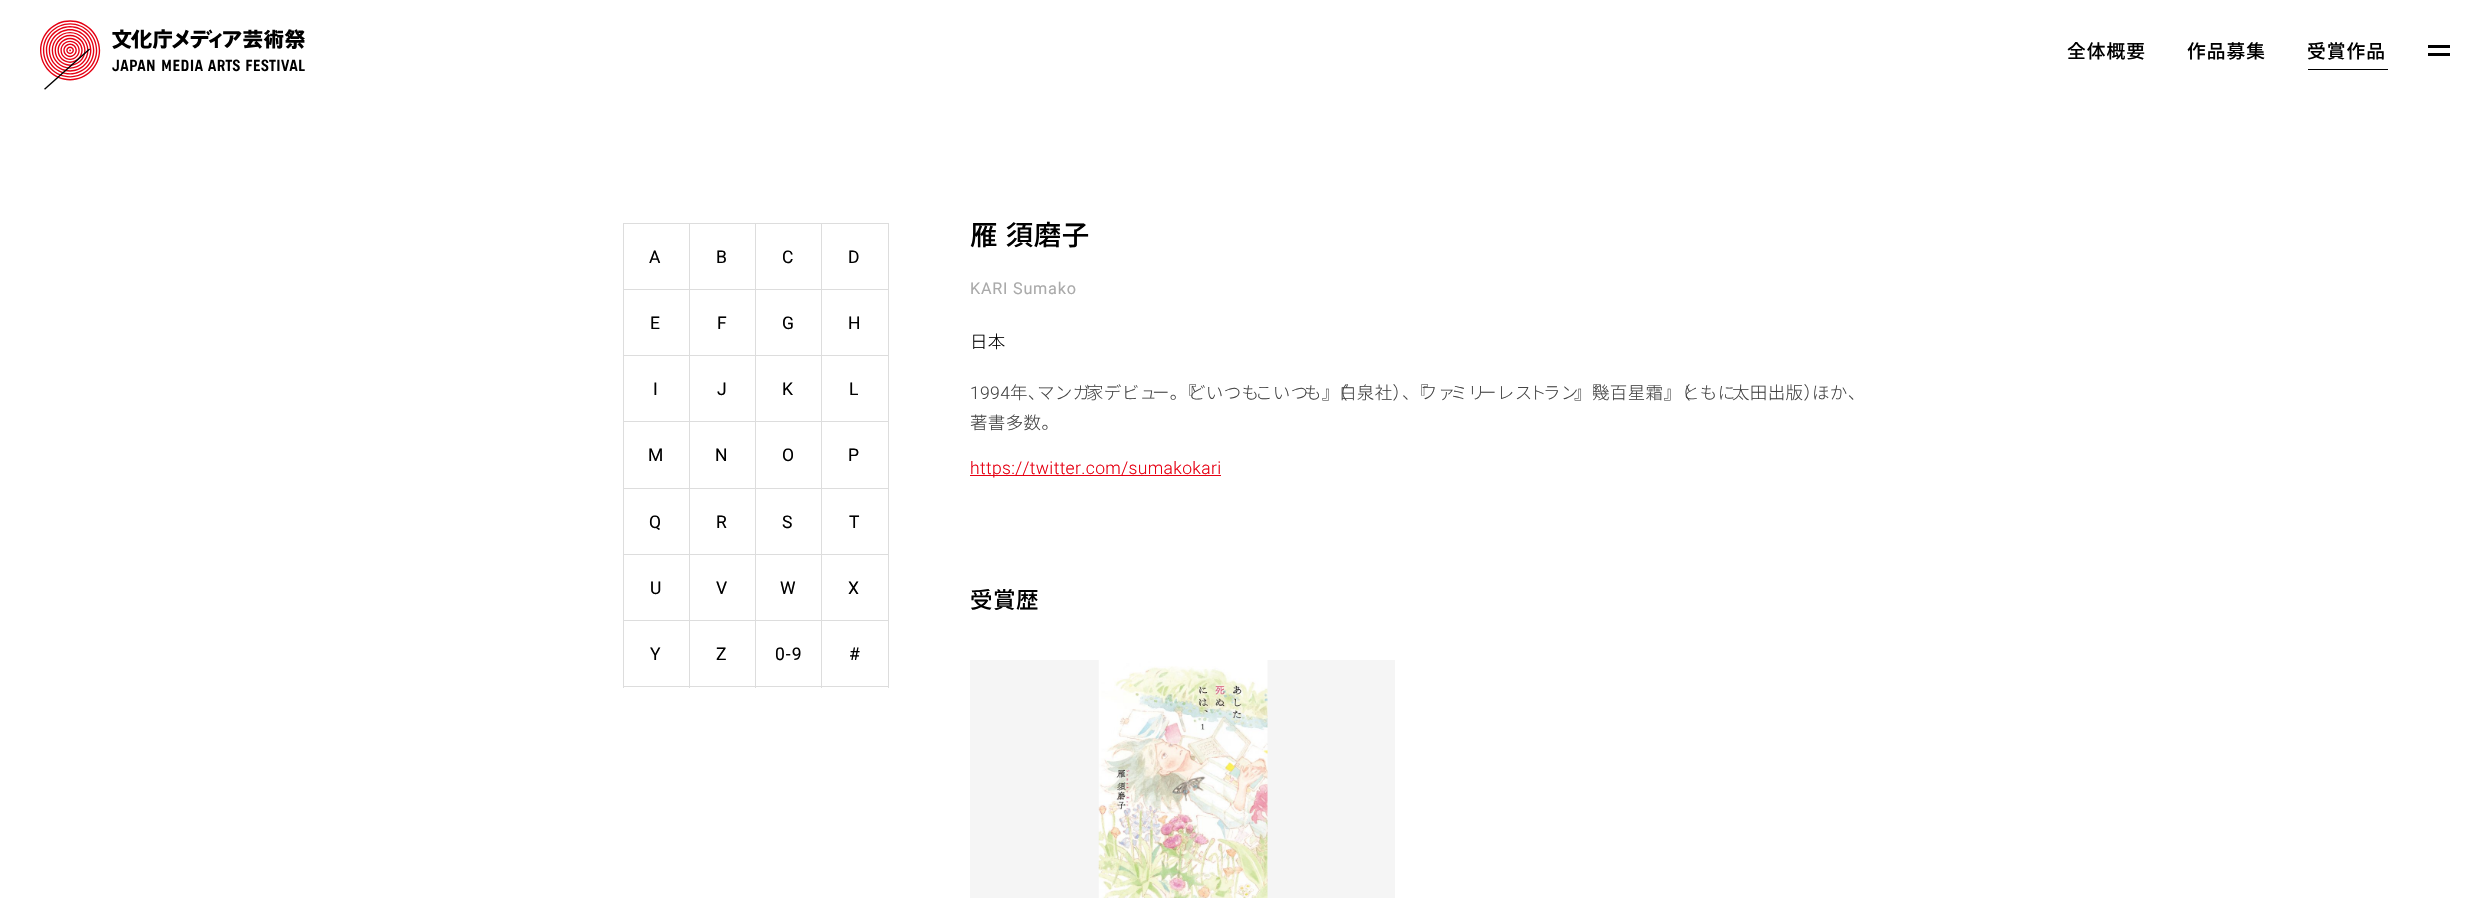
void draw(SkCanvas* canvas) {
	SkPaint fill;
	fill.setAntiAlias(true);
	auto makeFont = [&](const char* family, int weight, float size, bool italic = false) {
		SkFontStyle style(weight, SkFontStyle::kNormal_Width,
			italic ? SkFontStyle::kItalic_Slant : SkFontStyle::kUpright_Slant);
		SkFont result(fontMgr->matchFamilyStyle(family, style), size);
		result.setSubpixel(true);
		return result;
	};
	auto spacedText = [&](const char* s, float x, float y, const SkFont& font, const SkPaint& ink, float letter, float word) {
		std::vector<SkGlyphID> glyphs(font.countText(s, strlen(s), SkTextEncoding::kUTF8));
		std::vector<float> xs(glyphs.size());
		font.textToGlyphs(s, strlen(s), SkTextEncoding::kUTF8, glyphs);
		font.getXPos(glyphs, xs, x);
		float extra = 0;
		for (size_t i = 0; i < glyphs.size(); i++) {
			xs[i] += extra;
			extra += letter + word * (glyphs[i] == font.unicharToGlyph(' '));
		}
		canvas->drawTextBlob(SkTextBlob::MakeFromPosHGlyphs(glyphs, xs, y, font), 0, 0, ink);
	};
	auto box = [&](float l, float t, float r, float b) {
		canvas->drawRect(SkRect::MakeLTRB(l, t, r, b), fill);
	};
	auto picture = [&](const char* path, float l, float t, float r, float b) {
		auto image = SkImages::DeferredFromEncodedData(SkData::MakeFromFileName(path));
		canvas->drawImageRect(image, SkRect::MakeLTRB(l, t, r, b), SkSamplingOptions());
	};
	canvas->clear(0xFFFFFFFF);
	picture("image0.png", 40, 20, 305, 90);
	fill.setColor(0xFF000000);
	box(2308, 69, 2388, 70);
	box(2428, 45, 2450, 48);
	box(2428, 53, 2450, 56);
	fill.setColor(0xFFDDDDDD);
	box(623, 223, 889, 224);
	box(623, 223, 624, 688);
	box(689, 224, 690, 688);
	box(624, 289, 690, 290);
	box(755, 224, 756, 688);
	box(690, 289, 756, 290);
	box(821, 224, 822, 688);
	box(756, 289, 823, 290);
	box(888, 224, 889, 688);
	box(823, 289, 889, 290);
	box(624, 355, 889, 356);
	box(624, 421, 889, 422);
	box(624, 488, 889, 489);
	box(624, 554, 889, 555);
	box(624, 620, 889, 621);
	box(624, 686, 889, 687);
	fill.setColor(0xFFE60012);
	box(970, 475, 1221, 476);
	fill.setColor(0xFFF5F5F5);
	box(970, 660, 1395, 898);
	picture("image1.png", 1098, 660, 1268, 898);
	auto font1 = makeFont("Noto Sans JP", 500, 18.75f);
	fill.setColor(0xFF000000);
	spacedText("全体概要", 2067, 58, font1, fill, 1, 0);
	spacedText("作品募集", 2187, 58, font1, fill, 1, 0);
	spacedText("受賞作品", 2307, 58, font1, fill, 1, 0);
	auto font2 = makeFont("Roboto", 400, 17.5f);
	spacedText("A", 649, 263, font2, fill, 1, 0);
	spacedText("B", 716, 263, font2, fill, 1, 0);
	spacedText("C", 782, 263, font2, fill, 1, 0);
	spacedText("D", 848, 263, font2, fill, 1, 0);
	spacedText("E", 650, 329, font2, fill, 1, 0);
	spacedText("F", 717, 329, font2, fill, 1, 0);
	spacedText("G", 782, 329, font2, fill, 1, 0);
	spacedText("H", 848, 329, font2, fill, 1, 0);
	spacedText("I", 653, 395, font2, fill, 1, 0);
	spacedText("J", 717, 395, font2, fill, 1, 0);
	spacedText("K", 782, 395, font2, fill, 1, 0);
	spacedText("L", 849, 395, font2, fill, 1, 0);
	spacedText("M", 648, 461, font2, fill, 1, 0);
	spacedText("N", 715, 461, font2, fill, 1, 0);
	spacedText("O", 782, 461, font2, fill, 1, 0);
	spacedText("P", 848, 461, font2, fill, 1, 0);
	spacedText("Q", 649, 528, font2, fill, 1, 0);
	spacedText("R", 716, 528, font2, fill, 1, 0);
	spacedText("S", 782, 528, font2, fill, 1, 0);
	spacedText("T", 849, 528, font2, fill, 1, 0);
	spacedText("U", 650, 594, font2, fill, 1, 0);
	spacedText("V", 716, 594, font2, fill, 1, 0);
	spacedText("W", 780, 594, font2, fill, 1, 0);
	spacedText("X", 848, 594, font2, fill, 1, 0);
	spacedText("Y", 650, 660, font2, fill, 1, 0);
	spacedText("Z", 716, 660, font2, fill, 1, 0);
	spacedText("0-9", 775, 660, font2, fill, 1, 0);
	spacedText("#", 849, 660, font2, fill, 1, 0);
	auto font3 = makeFont("Noto Sans JP", 500, 27.5f);
	spacedText("雁 須磨子", 970, 245, font3, fill, 0.5f, 1);
	auto font4 = makeFont("Roboto", 400, 16.25f);
	fill.setColor(0xFFAAAAAA);
	spacedText("KARI Sumako", 970, 294, font4, fill, 0.75f, 0);
	auto font5 = makeFont("Noto Sans JP", 300, 17.5f);
	fill.setColor(0xFF000000);
	spacedText("日本", 970, 348, font5, fill, 0.35f, 0);
	auto font6 = makeFont("Roboto", 300, 17.5f);
	fill.setColor(0xFF444444);
	spacedText("1994", 970, 399, font6, fill, 0.35f, 0);
	spacedText("年、", 1010, 399, font5, fill, 0.35f, 0);
	spacedText("マンガ", 1037, 399, font5, fill, 0.35f, 0);
	spacedText("家デビュ", 1086, 399, font5, fill, 0.35f, 0);
	spacedText("ー。", 1152, 399, font5, fill, 0.35f, 0);
	spacedText("『", 1179, 399, font5, fill, 0.35f, 0);
	spacedText("どいつも", 1188, 399, font5, fill, 0.35f, 0);
	spacedText("こいつ", 1255, 399, font5, fill, 0.35f, 0);
	spacedText("も』", 1304, 399, font5, fill, 0.35f, 0);
	spacedText("（", 1330, 399, font5, fill, 0.35f, 0);
	spacedText("白泉社）", 1339, 399, font5, fill, 0.35f, 0);
	spacedText("、", 1402, 399, font5, fill, 0.35f, 0);
	spacedText("『", 1411, 399, font5, fill, 0.35f, 0);
	spacedText("ファ", 1420, 399, font5, fill, 0.35f, 0);
	spacedText("ミリ", 1450, 399, font5, fill, 0.35f, 0);
	spacedText("ーレス", 1479, 399, font5, fill, 0.35f, 0);
	spacedText("ト", 1529, 399, font5, fill, 0.35f, 0);
	spacedText("ラン", 1543, 399, font5, fill, 0.35f, 0);
	spacedText("』", 1574, 399, font5, fill, 0.35f, 0);
	spacedText("『", 1583, 399, font5, fill, 0.35f, 0);
	spacedText("幾百星霜』", 1592, 399, font5, fill, 0.35f, 0);
	spacedText("（", 1673, 399, font5, fill, 0.35f, 0);
	spacedText("ともに", 1682, 399, font5, fill, 0.35f, 0);
	spacedText("太田出版）", 1732, 399, font5, fill, 0.35f, 0);
	spacedText("ほか、", 1812, 399, font5, fill, 0.35f, 0);
	spacedText("著書多数。", 970, 429, font5, fill, 0.35f, 0);
	fill.setColor(0xFFE60012);
	spacedText("https://twitter.com/sumakokari", 970, 474, font6, fill, 0.35f, 0);
	auto font7 = makeFont("Noto Sans JP", 500, 22.5f);
	fill.setColor(0xFF000000);
	spacedText("受賞歴", 970, 608, font7, fill, 0.5f, 0);
}
